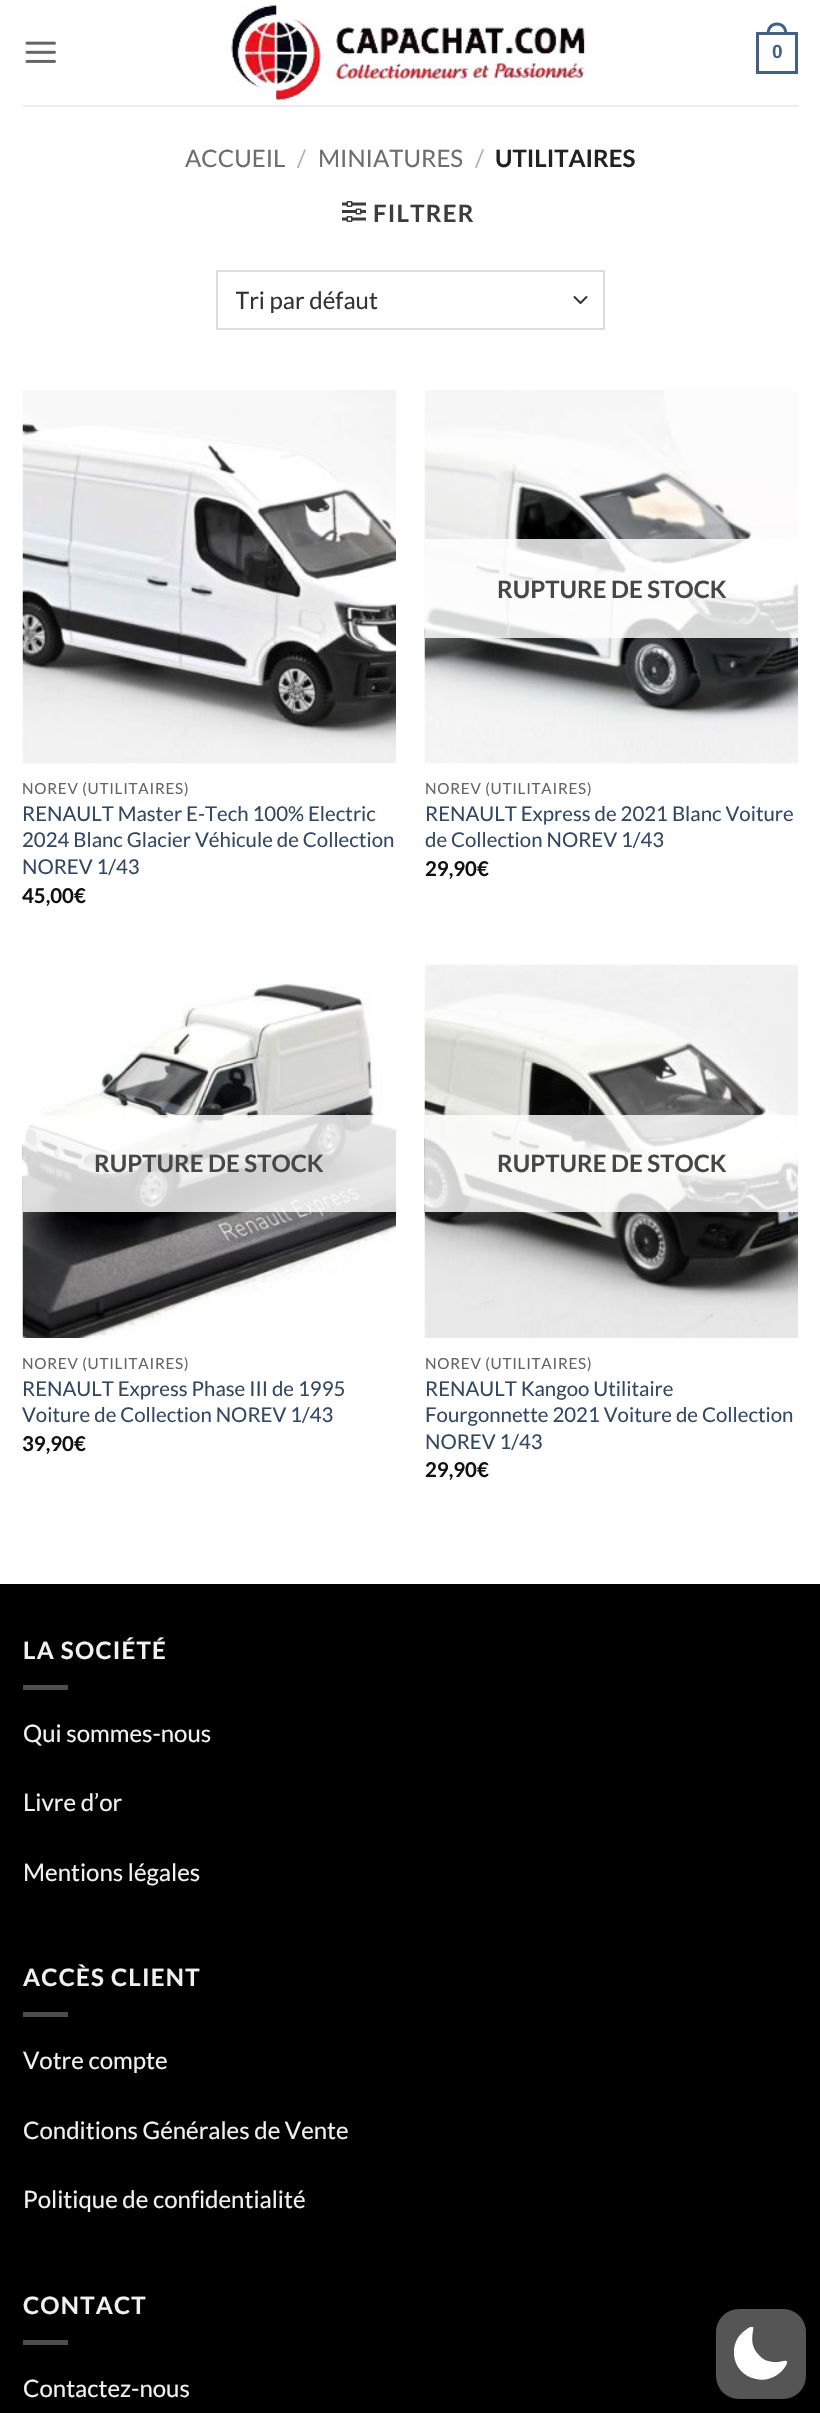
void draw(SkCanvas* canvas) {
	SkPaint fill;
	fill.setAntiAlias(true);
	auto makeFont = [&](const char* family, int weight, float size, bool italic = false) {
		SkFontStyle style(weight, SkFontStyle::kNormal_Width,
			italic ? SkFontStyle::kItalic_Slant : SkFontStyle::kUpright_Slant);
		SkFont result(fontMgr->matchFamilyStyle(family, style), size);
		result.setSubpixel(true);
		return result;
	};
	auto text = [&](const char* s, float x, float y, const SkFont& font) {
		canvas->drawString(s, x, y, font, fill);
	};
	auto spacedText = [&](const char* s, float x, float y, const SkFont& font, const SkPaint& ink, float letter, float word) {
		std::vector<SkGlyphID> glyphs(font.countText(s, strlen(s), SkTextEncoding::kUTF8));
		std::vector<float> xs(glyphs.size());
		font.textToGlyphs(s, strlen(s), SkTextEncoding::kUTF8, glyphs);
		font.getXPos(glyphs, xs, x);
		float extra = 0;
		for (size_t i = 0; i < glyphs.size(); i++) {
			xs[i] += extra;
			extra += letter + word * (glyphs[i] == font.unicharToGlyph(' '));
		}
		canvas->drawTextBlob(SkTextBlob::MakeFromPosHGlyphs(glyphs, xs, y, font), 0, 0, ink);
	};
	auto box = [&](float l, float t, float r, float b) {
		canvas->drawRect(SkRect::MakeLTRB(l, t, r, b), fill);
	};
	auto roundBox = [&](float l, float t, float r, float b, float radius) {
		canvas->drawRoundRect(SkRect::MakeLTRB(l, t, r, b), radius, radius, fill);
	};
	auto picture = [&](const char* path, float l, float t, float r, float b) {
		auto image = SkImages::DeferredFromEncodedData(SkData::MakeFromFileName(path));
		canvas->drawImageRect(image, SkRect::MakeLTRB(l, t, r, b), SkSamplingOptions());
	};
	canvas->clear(0xFFFFFFFF);
	picture("image0.png", 25, 41, 56, 63);
	picture("image1.png", 229, 3, 593, 102);
	fill.setStyle(SkPaint::kStroke_Style);
	fill.setStrokeWidth(3);
	fill.setColor(0xFF446084);
	canvas->drawRect(SkRect::MakeLTRB(757.5f, 33.5f, 796.5f, 72.5f), fill);
	fill.setStyle(SkPaint::kFill_Style);
	canvas->drawPath(SkPathBuilder(SkPathFillType::kEvenOdd).moveTo(777, 22.5f).cubicTo(784, 22.5f, 787.5f, 28, 787.5f, 34.5f).lineTo(766.5f, 34.5f).cubicTo(766.5f, 28, 770, 22.5f, 777, 22.5f).close().moveTo(777, 25.5f).cubicTo(782.5f, 25.5f, 784.5f, 30, 784.5f, 34.5f).lineTo(769.5f, 34.5f).cubicTo(769.5f, 30, 771.5f, 25.5f, 777, 25.5f).close().detach(), fill);
	fill.setColor(0xFFECECEC);
	box(23, 105, 798, 107);
	picture("image2.png", 342, 201, 366, 222);
	fill.setStyle(SkPaint::kStroke_Style);
	fill.setStrokeWidth(2);
	fill.setStrokeCap(SkPaint::kRound_Cap);
	fill.setStrokeJoin(SkPaint::kRound_Join);
	fill.setColor(0xFF333333);
	canvas->drawPath(SkPathBuilder().moveTo(574.5f, 297).lineTo(580.5f, 303).lineTo(586.5f, 297).detach(), fill);
	fill.setStrokeCap(SkPaint::kButt_Cap);
	fill.setStrokeJoin(SkPaint::kMiter_Join);
	fill.setColor(0xFFDDDDDD);
	canvas->drawRect(SkRect::MakeLTRB(217, 271, 604, 329), fill);
	picture("image3.png", 22, 390, 396, 764);
	picture("image4.png", 424, 390, 798, 764);
	fill.setStyle(SkPaint::kFill_Style);
	fill.setColor(0xCFFFFFFF);
	box(425, 539, 798, 638);
	picture("image5.png", 22, 983, 396, 1338);
	box(23, 1115, 396, 1212);
	picture("image6.png", 424, 964, 798, 1338);
	box(425, 1115, 798, 1212);
	fill.setColor(0xFF000000);
	box(0, 1584, 820, 2413);
	fill.setColor(0xFF4D4D4D);
	box(23, 1685, 68, 1690);
	box(23, 2012, 68, 2017);
	box(23, 2340, 68, 2345);
	fill.setColor(0xFF555555);
	roundBox(716, 2309, 806, 2399, 23);
	canvas->save();
	canvas->clipRect(SkRect::MakeLTRB(734, 2327, 788, 2381));
	fill.setColor(0xFFFEFEFE);
	canvas->drawPath(SkPathBuilder(SkPathFillType::kEvenOdd).moveTo(753, 2327).cubicTo(755, 2329, 747, 2343, 759, 2355).cubicTo(763, 2360, 769, 2362, 775, 2362).cubicTo(780, 2363, 792, 2356, 785, 2367).cubicTo(783, 2370, 780, 2373, 777, 2375).cubicTo(771, 2379, 763, 2381, 756, 2379).cubicTo(731, 2374, 726, 2342, 747, 2329).cubicTo(748, 2328, 751, 2326, 753, 2327).close().detach(), fill);
	canvas->restore();
	auto font1 = makeFont("Liberation Sans", 700, 19);
	fill.setColor(0xFF446084);
	text("0", 772, 58, font1);
	auto font2 = makeFont("Lato", 400, 24);
	fill.setColor(0xFF6E6E6E);
	text("ACCUEIL", 185, 167, font2);
	fill.setColor(0xFFB2B2B2);
	text("/", 297, 167, font2);
	fill.setColor(0xFF6E6E6E);
	text("MINIATURES", 318, 167, font2);
	fill.setColor(0xFFB2B2B2);
	text("/", 475, 167, font2);
	auto font3 = makeFont("Lato", 700, 24);
	fill.setColor(0xFF222222);
	text("UTILITAIRES", 495, 167, font3);
	fill.setColor(0xFF3D3D3D);
	spacedText("FILTRER", 373, 222, font3, fill, 1.25f, 0);
	canvas->save();
	canvas->clipRect(SkRect::MakeLTRB(236, 281, 570, 320));
	fill.setColor(0xFF333333);
	text("Tri par défaut", 235, 309, font2);
	canvas->restore();
	auto font4 = makeFont("Lato", 400, 15.25f);
	fill.setColor(0xFF646464);
	spacedText("NOREV (UTILITAIRES)", 22, 794, font4, fill, 0.75f, 0);
	auto font5 = makeFont("Lato", 400, 20.4f);
	fill.setColor(0xFF334862);
	text("RENAULT Master E-Tech 100% Electric", 22, 821, font5);
	text("2024 Blanc Glacier Véhicule de Collection", 22, 847, font5);
	text("NOREV 1/43", 22, 874, font5);
	auto font6 = makeFont("Lato", 700, 20.4f);
	fill.setColor(0xFF111111);
	text("45,00€", 22, 903, font6);
	fill.setColor(0xFF474747);
	text("RUPTURE DE STOCK", 497, 598, font3);
	fill.setColor(0xFF646464);
	spacedText("NOREV (UTILITAIRES)", 425, 794, font4, fill, 0.75f, 0);
	fill.setColor(0xFF334862);
	text("RENAULT Express de 2021 Blanc Voiture", 425, 821, font5);
	text("de Collection NOREV 1/43", 425, 847, font5);
	fill.setColor(0xFF111111);
	text("29,90€", 425, 876, font6);
	fill.setColor(0xFF474747);
	text("RUPTURE DE STOCK", 94, 1172, font3);
	fill.setColor(0xFF646464);
	spacedText("NOREV (UTILITAIRES)", 22, 1369, font4, fill, 0.75f, 0);
	fill.setColor(0xFF334862);
	text("RENAULT Express Phase III de 1995", 22, 1396, font5);
	text("Voiture de Collection NOREV 1/43", 22, 1422, font5);
	fill.setColor(0xFF111111);
	text("39,90€", 22, 1451, font6);
	fill.setColor(0xFF474747);
	text("RUPTURE DE STOCK", 497, 1172, font3);
	fill.setColor(0xFF646464);
	spacedText("NOREV (UTILITAIRES)", 425, 1369, font4, fill, 0.75f, 0);
	fill.setColor(0xFF334862);
	text("RENAULT Kangoo Utilitaire", 425, 1396, font5);
	text("Fourgonnette 2021 Voiture de Collection", 425, 1422, font5);
	text("NOREV 1/43", 425, 1449, font5);
	fill.setColor(0xFF111111);
	text("29,90€", 425, 1477, font6);
	fill.setColor(0xFFF1F1F1);
	spacedText("LA SOCIÉTÉ", 23, 1659, font3, fill, 1.25f, 0);
	text("Qui sommes-nous", 23, 1742, font2);
	text("Livre d’or", 23, 1811, font2);
	text("Mentions légales", 23, 1881, font2);
	spacedText("ACCÈS CLIENT", 23, 1986, font3, fill, 1.25f, 0);
	text("Votre compte", 23, 2069, font2);
	text("Conditions Générales de Vente", 23, 2139, font2);
	text("Politique de confidentialité", 23, 2208, font2);
	spacedText("CONTACT", 23, 2314, font3, fill, 1.25f, 0);
	text("Contactez-nous", 23, 2397, font2);
}
